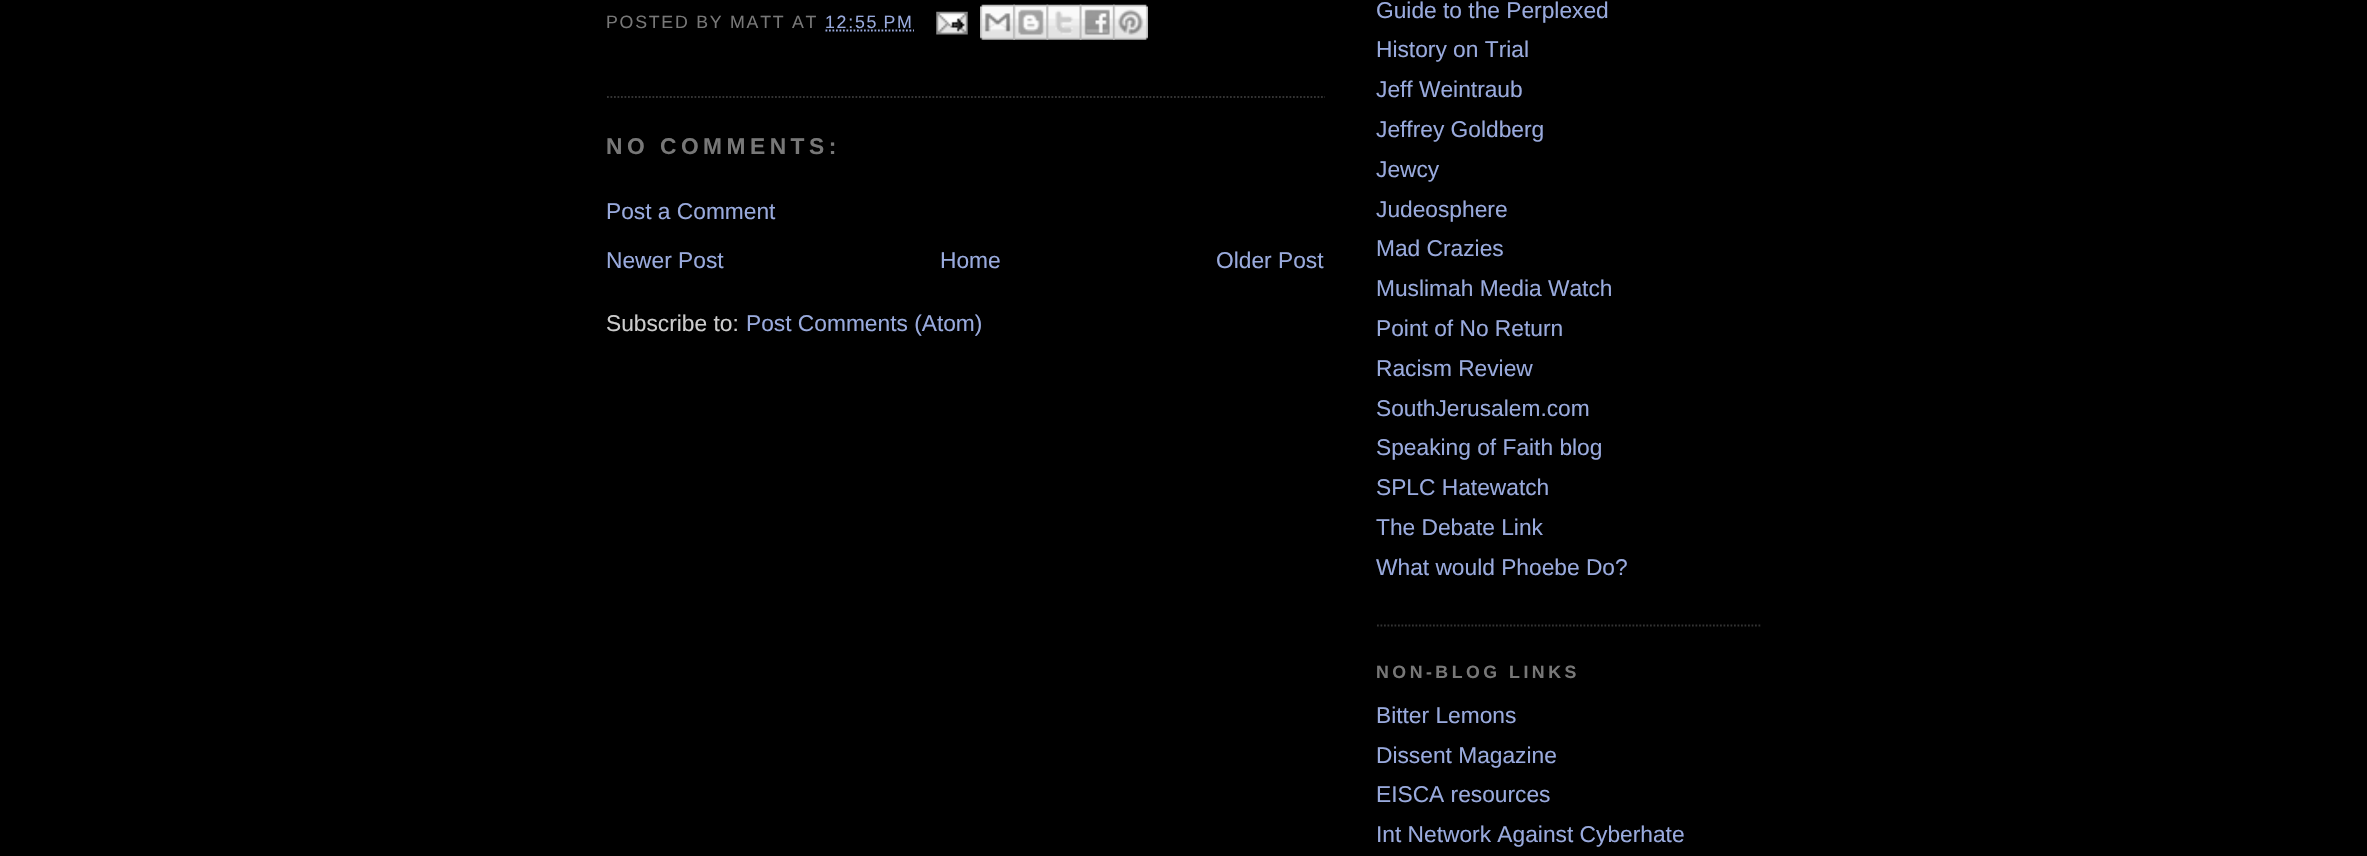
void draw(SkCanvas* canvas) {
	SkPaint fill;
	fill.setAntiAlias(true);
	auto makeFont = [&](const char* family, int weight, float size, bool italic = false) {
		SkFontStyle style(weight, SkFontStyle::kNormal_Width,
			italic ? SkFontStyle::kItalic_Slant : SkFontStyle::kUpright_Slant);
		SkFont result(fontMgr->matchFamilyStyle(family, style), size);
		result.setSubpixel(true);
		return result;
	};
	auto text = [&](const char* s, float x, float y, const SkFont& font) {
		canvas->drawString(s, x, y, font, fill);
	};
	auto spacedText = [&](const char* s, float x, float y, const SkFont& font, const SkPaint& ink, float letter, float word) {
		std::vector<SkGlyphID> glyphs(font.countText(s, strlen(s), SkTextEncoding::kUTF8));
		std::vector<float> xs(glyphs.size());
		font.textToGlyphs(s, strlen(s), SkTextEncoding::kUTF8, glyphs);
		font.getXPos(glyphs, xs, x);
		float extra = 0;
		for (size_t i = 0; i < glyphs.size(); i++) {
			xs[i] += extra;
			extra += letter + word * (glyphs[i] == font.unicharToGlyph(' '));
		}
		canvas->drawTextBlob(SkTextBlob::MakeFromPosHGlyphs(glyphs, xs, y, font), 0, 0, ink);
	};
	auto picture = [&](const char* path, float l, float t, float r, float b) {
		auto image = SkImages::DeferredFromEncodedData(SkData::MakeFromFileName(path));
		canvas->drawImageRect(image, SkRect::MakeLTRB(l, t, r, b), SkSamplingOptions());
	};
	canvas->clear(0xFF000000);
	fill.setStyle(SkPaint::kStroke_Style);
	fill.setStrokeWidth(1.8f);
	fill.setColor(0xFF333333);
	fill.setPathEffect(SkDashPathEffect::Make({{1.75f, 1.75f}}, 0));
	canvas->drawPath(SkPathBuilder().moveTo(607, 97).lineTo(1325, 97).detach(), fill);
	fill.setPathEffect(nullptr);
	fill.setColor(0xFF99AADD);
	fill.setPathEffect(SkDashPathEffect::Make({{1.75f, 1.75f}}, 0));
	canvas->drawPath(SkPathBuilder().moveTo(825.5f, 30.5f).lineTo(914, 30.5f).detach(), fill);
	fill.setPathEffect(nullptr);
	picture("image0.png", 936, 11, 968, 35);
	picture("image1.png", 980, 4, 1015, 40);
	picture("image2.png", 1013, 4, 1049, 40);
	picture("image3.png", 1046, 4, 1082, 40);
	picture("image4.png", 1079, 4, 1115, 40);
	picture("image5.png", 1113, 4, 1148, 40);
	fill.setColor(0xFF333333);
	fill.setPathEffect(SkDashPathEffect::Make({{1.75f, 1.75f}}, 0));
	canvas->drawPath(SkPathBuilder().moveTo(1377, 625.5f).lineTo(1762, 625.5f).detach(), fill);
	fill.setPathEffect(nullptr);
	auto font1 = makeFont("Liberation Sans", 400, 17.75f);
	fill.setStyle(SkPaint::kFill_Style);
	fill.setColor(0xFF777777);
	spacedText("POSTED BY MATT AT", 606, 28, font1, fill, 1.75f, 0);
	fill.setColor(0xFF99AADD);
	spacedText("12:55 PM", 825, 28, font1, fill, 1.75f, 0);
	auto font2 = makeFont("Liberation Sans", 700, 22.75f);
	fill.setColor(0xFF777777);
	spacedText("NO COMMENTS:", 606, 154, font2, fill, 4.5f, 0);
	auto font3 = makeFont("Liberation Sans", 400, 22.75f);
	fill.setColor(0xFF99AADD);
	text("Post a Comment", 606, 219, font3);
	text("Newer Post", 606, 268, font3);
	text("Home", 940, 268, font3);
	text("Older Post", 1216, 268, font3);
	fill.setColor(0xFFCCCCCC);
	text("Subscribe to:", 606, 331, font3);
	fill.setColor(0xFF99AADD);
	text("Post Comments (Atom)", 746, 331, font3);
	text("Guide to the Perplexed", 1376, 18, font3);
	text("History on Trial", 1376, 57, font3);
	text("Jeff Weintraub", 1376, 97, font3);
	text("Jeffrey Goldberg", 1376, 137, font3);
	text("Jewcy", 1376, 177, font3);
	text("Judeosphere", 1376, 217, font3);
	text("Mad Crazies", 1376, 256, font3);
	text("Muslimah Media Watch", 1376, 296, font3);
	text("Point of No Return", 1376, 336, font3);
	text("Racism Review", 1376, 376, font3);
	text("SouthJerusalem.com", 1376, 416, font3);
	text("Speaking of Faith blog", 1376, 455, font3);
	text("SPLC Hatewatch", 1376, 495, font3);
	text("The Debate Link", 1376, 535, font3);
	text("What would Phoebe Do?", 1376, 575, font3);
	auto font4 = makeFont("Liberation Sans", 700, 17.75f);
	fill.setColor(0xFF777777);
	spacedText("NON-BLOG LINKS", 1376, 678, font4, fill, 3.5f, 0);
	fill.setColor(0xFF99AADD);
	text("Bitter Lemons", 1376, 723, font3);
	text("Dissent Magazine", 1376, 763, font3);
	text("EISCA resources", 1376, 802, font3);
	text("Int Network Against Cyberhate", 1376, 842, font3);
}
